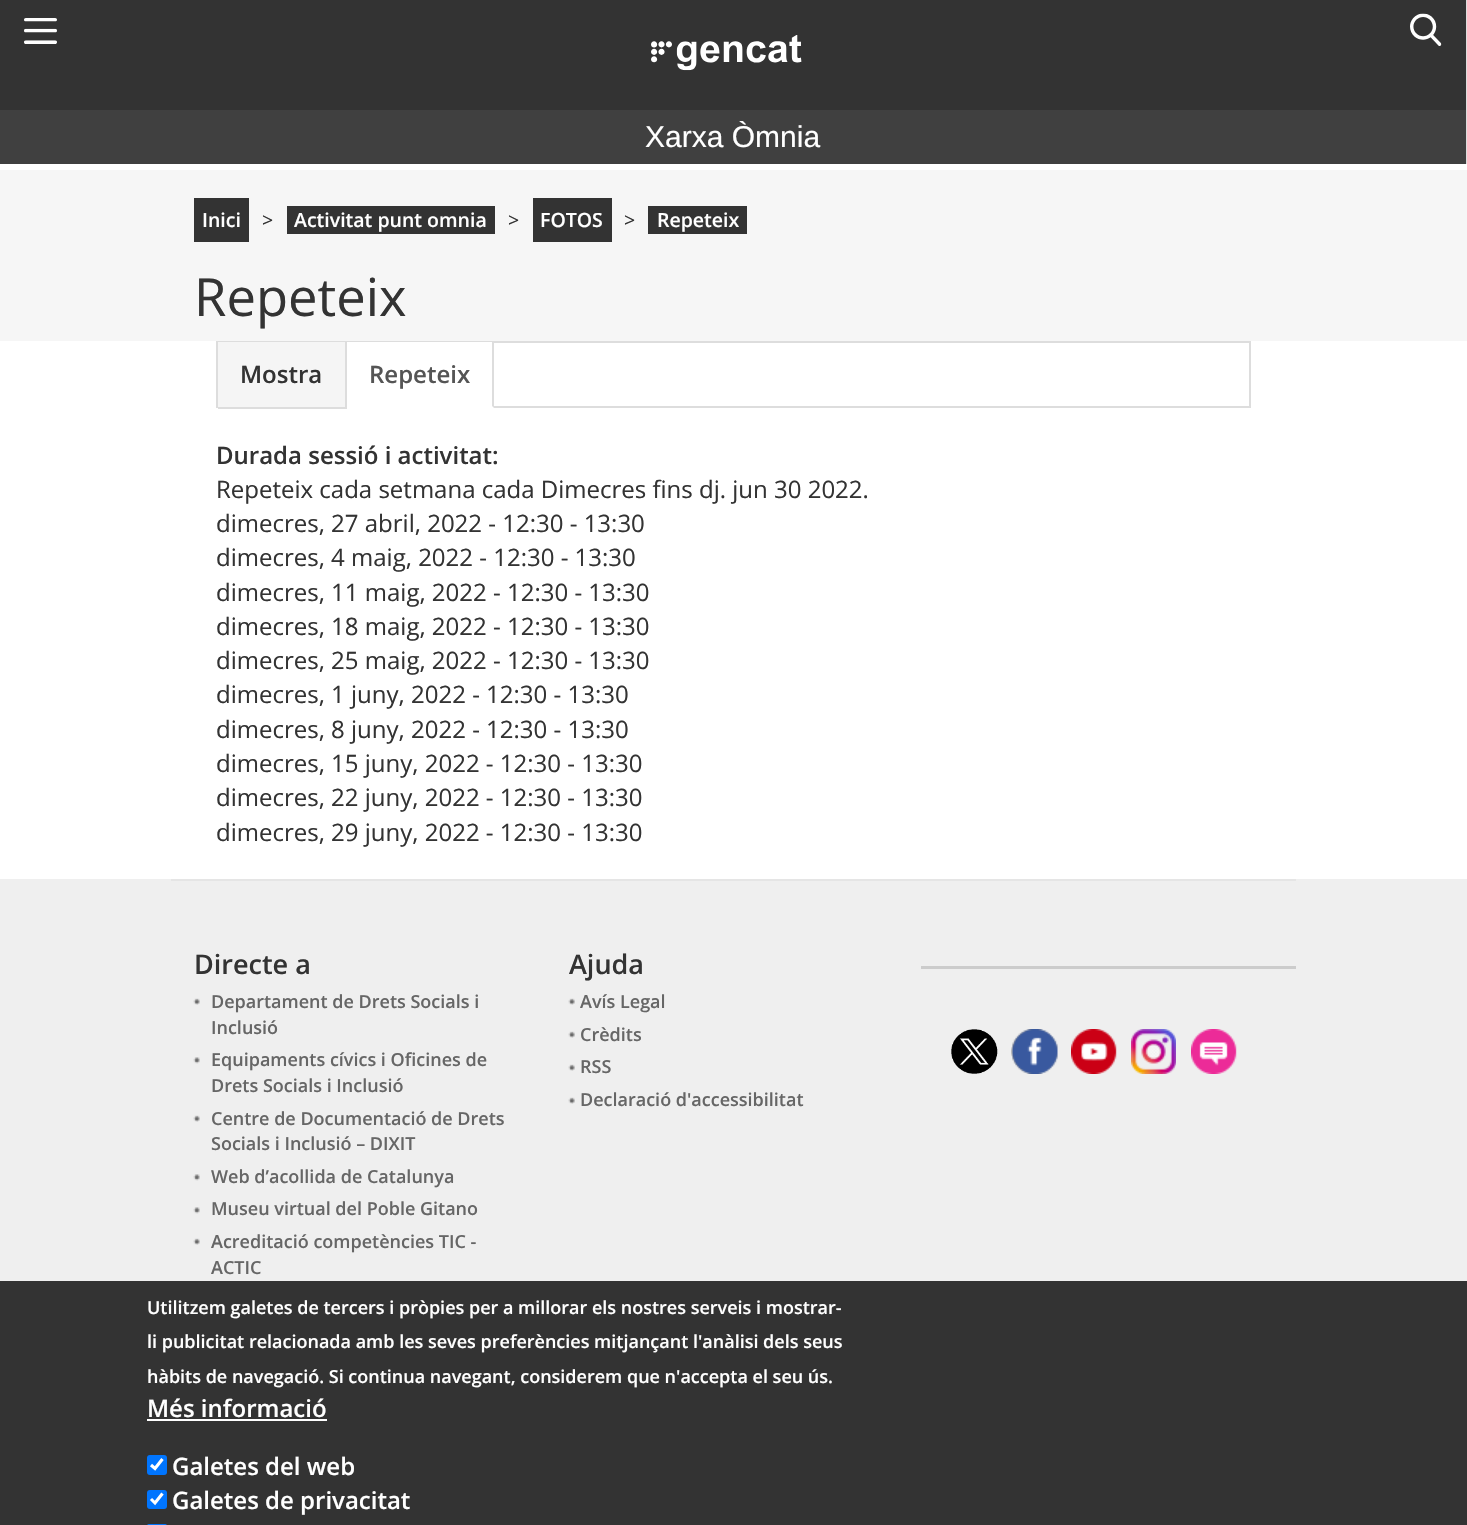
void draw(SkCanvas* canvas) {
	SkPaint fill;
	fill.setAntiAlias(true);
	auto makeFont = [&](const char* family, int weight, float size, bool italic = false) {
		SkFontStyle style(weight, SkFontStyle::kNormal_Width,
			italic ? SkFontStyle::kItalic_Slant : SkFontStyle::kUpright_Slant);
		SkFont result(fontMgr->matchFamilyStyle(family, style), size);
		result.setSubpixel(true);
		return result;
	};
	auto text = [&](const char* s, float x, float y, const SkFont& font) {
		canvas->drawString(s, x, y, font, fill);
	};
	auto box = [&](float l, float t, float r, float b) {
		canvas->drawRect(SkRect::MakeLTRB(l, t, r, b), fill);
	};
	auto roundBox = [&](float l, float t, float r, float b, float radius) {
		canvas->drawRoundRect(SkRect::MakeLTRB(l, t, r, b), radius, radius, fill);
	};
	auto picture = [&](const char* path, float l, float t, float r, float b) {
		auto image = SkImages::DeferredFromEncodedData(SkData::MakeFromFileName(path));
		canvas->drawImageRect(image, SkRect::MakeLTRB(l, t, r, b), SkSamplingOptions());
	};
	canvas->clear(0xFFFFFFFF);
	fill.setColor(0xFF333333);
	box(0, 0, 1466, 110);
	fill.setColor(0xFFDDDDDD);
	box(1466, 0, 1467, 164);
	picture("image0.png", 24, 18, 57, 44);
	picture("image1.png", 651, 35, 802, 71);
	picture("image2.png", 1410, 13, 1442, 46);
	fill.setColor(0xFF404040);
	box(0, 110, 1466, 164);
	fill.setColor(0xFFF6F6F6);
	box(0, 170, 1467, 341);
	fill.setColor(0xFF333333);
	box(194, 198, 249, 242);
	box(287, 206, 495, 234);
	box(533, 198, 612, 242);
	box(648, 206, 747, 234);
	fill.setStyle(SkPaint::kStroke_Style);
	fill.setStrokeWidth(2);
	fill.setColor(0xFFDDDDDD);
	canvas->drawRect(SkRect::MakeLTRB(217, 342, 1250, 407), fill);
	fill.setStyle(SkPaint::kFill_Style);
	fill.setColor(0xFFF5F5F5);
	box(218, 342, 345, 407);
	fill.setColor(0xFFDDDDDD);
	box(345, 342, 347, 408);
	box(218, 408, 347, 409);
	fill.setColor(0xFFFFFFFF);
	box(347, 342, 494, 408);
	fill.setColor(0xFFDDDDDD);
	canvas->drawPath(SkPathBuilder().moveTo(494, 342).lineTo(494, 408).lineTo(492, 406).lineTo(492, 342).close().detach(), fill);
	fill.setColor(0xFFEFEFEF);
	box(0, 879, 1467, 1281);
	fill.setColor(0xFFE5E5E5);
	box(171, 879, 1296, 881);
	picture("image3.png", 193, 998, 200, 1005);
	picture("image4.png", 193, 1057, 200, 1064);
	picture("image3.png", 193, 1115, 200, 1122);
	picture("image4.png", 193, 1174, 200, 1181);
	picture("image4.png", 193, 1207, 200, 1214);
	picture("image3.png", 193, 1238, 200, 1245);
	picture("image5.png", 568, 998, 575, 1005);
	picture("image5.png", 568, 1031, 575, 1038);
	picture("image5.png", 568, 1064, 575, 1071);
	picture("image5.png", 568, 1097, 575, 1104);
	fill.setColor(0xFFCCCCCC);
	box(921, 966, 1296, 969);
	picture("image6.png", 951, 1029, 998, 1074);
	picture("image7.png", 1011, 1029, 1058, 1074);
	picture("image8.png", 1071, 1029, 1117, 1074);
	picture("image9.png", 1131, 1029, 1176, 1074);
	picture("image10.png", 1191, 1029, 1237, 1074);
	fill.setColor(0xFF333333);
	box(0, 1281, 1467, 1525);
	fill.setColor(0xFFFFFFFF);
	box(147, 1419, 327, 1421);
	fill.setColor(0xFF0075FF);
	roundBox(147, 1455, 167, 1475, 3);
	fill.setStyle(SkPaint::kStroke_Style);
	fill.setStrokeWidth(3.1f);
	fill.setColor(0xFFFFFFFF);
	canvas->drawPath(SkPathBuilder().moveTo(151, 1465).lineTo(155, 1468.5f).lineTo(162.5f, 1459).detach(), fill);
	fill.setStyle(SkPaint::kFill_Style);
	fill.setColor(0xFF0075FF);
	roundBox(147, 1490, 167, 1509, 3);
	fill.setStyle(SkPaint::kStroke_Style);
	fill.setColor(0xFFFFFFFF);
	canvas->drawPath(SkPathBuilder().moveTo(151, 1499).lineTo(155, 1503).lineTo(162.5f, 1493.5f).detach(), fill);
	fill.setStyle(SkPaint::kFill_Style);
	fill.setColor(0xFF0075FF);
	roundBox(147, 1524, 167, 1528, 3);
	auto font1 = makeFont("Liberation Sans", 400, 30);
	fill.setColor(0xFFFFFFFF);
	text("Xarxa Òmnia", 645, 147, font1);
	auto font2 = makeFont("Open Sans", 600, 19.5f);
	text("Inici", 202, 227, font2);
	auto font3 = makeFont("Open Sans", 400, 19.5f);
	fill.setColor(0xFF333333);
	text(">", 262, 227, font3);
	fill.setColor(0xFFFFFFFF);
	text("Activitat punt omnia", 294, 227, font2);
	fill.setColor(0xFF333333);
	text(">", 508, 227, font3);
	fill.setColor(0xFFFFFFFF);
	text("FOTOS", 540, 227, font2);
	fill.setColor(0xFF333333);
	text(">", 624, 227, font3);
	fill.setColor(0xFFFFFFFF);
	text("Repeteix", 657, 227, font2);
	auto font4 = makeFont("Open Sans", 400, 52.5f);
	fill.setColor(0xFF333333);
	text("Repeteix", 194, 316, font4);
	auto font5 = makeFont("Open Sans", 600, 24);
	text("Mostra", 240, 383, font5);
	fill.setColor(0xFF555555);
	text("Repeteix", 369, 383, font5);
	fill.setColor(0xFF333333);
	text("Durada sessió i activitat:", 216, 464, font5);
	auto font6 = makeFont("Open Sans", 400, 24);
	text("Repeteix cada setmana cada Dimecres fins dj. jun 30 2022.", 216, 498, font6);
	text("dimecres, 27 abril, 2022 - 12:30 - 13:30", 216, 532, font6);
	text("dimecres, 4 maig, 2022 - 12:30 - 13:30", 216, 566, font6);
	text("dimecres, 11 maig, 2022 - 12:30 - 13:30", 216, 601, font6);
	text("dimecres, 18 maig, 2022 - 12:30 - 13:30", 216, 635, font6);
	text("dimecres, 25 maig, 2022 - 12:30 - 13:30", 216, 669, font6);
	text("dimecres, 1 juny, 2022 - 12:30 - 13:30", 216, 703, font6);
	text("dimecres, 8 juny, 2022 - 12:30 - 13:30", 216, 738, font6);
	text("dimecres, 15 juny, 2022 - 12:30 - 13:30", 216, 772, font6);
	text("dimecres, 22 juny, 2022 - 12:30 - 13:30", 216, 806, font6);
	text("dimecres, 29 juny, 2022 - 12:30 - 13:30", 216, 841, font6);
	auto font7 = makeFont("Open Sans", 600, 27);
	text("Directe a", 194, 974, font7);
	auto font8 = makeFont("Open Sans", 600, 18);
	fill.setColor(0xFF666666);
	text("Departament de Drets Socials i", 211, 1008, font8);
	text("Inclusió", 211, 1034, font8);
	text("Equipaments cívics i Oficines de", 211, 1066, font8);
	text("Drets Socials i Inclusió", 211, 1092, font8);
	text("Centre de Documentació de Drets", 211, 1125, font8);
	text("Socials i Inclusió – DIXIT", 211, 1150, font8);
	text("Web d’acollida de Catalunya", 211, 1183, font8);
	text("Museu virtual del Poble Gitano", 211, 1215, font8);
	text("Acreditació competències TIC -", 211, 1248, font8);
	text("ACTIC", 211, 1274, font8);
	fill.setColor(0xFF333333);
	text("Ajuda", 569, 974, font7);
	fill.setColor(0xFF666666);
	text("Avís Legal", 580, 1008, font8);
	text("Crèdits", 580, 1041, font8);
	text("RSS", 580, 1073, font8);
	text("Declaració d'accessibilitat", 580, 1106, font8);
	fill.setColor(0xFFFFFFFF);
	text("Utilitzem galetes de tercers i pròpies per a millorar els nostres serveis i mostrar-", 147, 1314, font8);
	text("li publicitat relacionada amb les seves preferències mitjançant l'anàlisi dels seus", 147, 1348, font8);
	text("hàbits de navegació. Si continua navegant, considerem que n'accepta el seu ús.", 147, 1383, font8);
	text("Més informació", 147, 1417, font5);
	text("Galetes del web", 172, 1475, font5);
	text("Galetes de privacitat", 172, 1509, font5);
}
